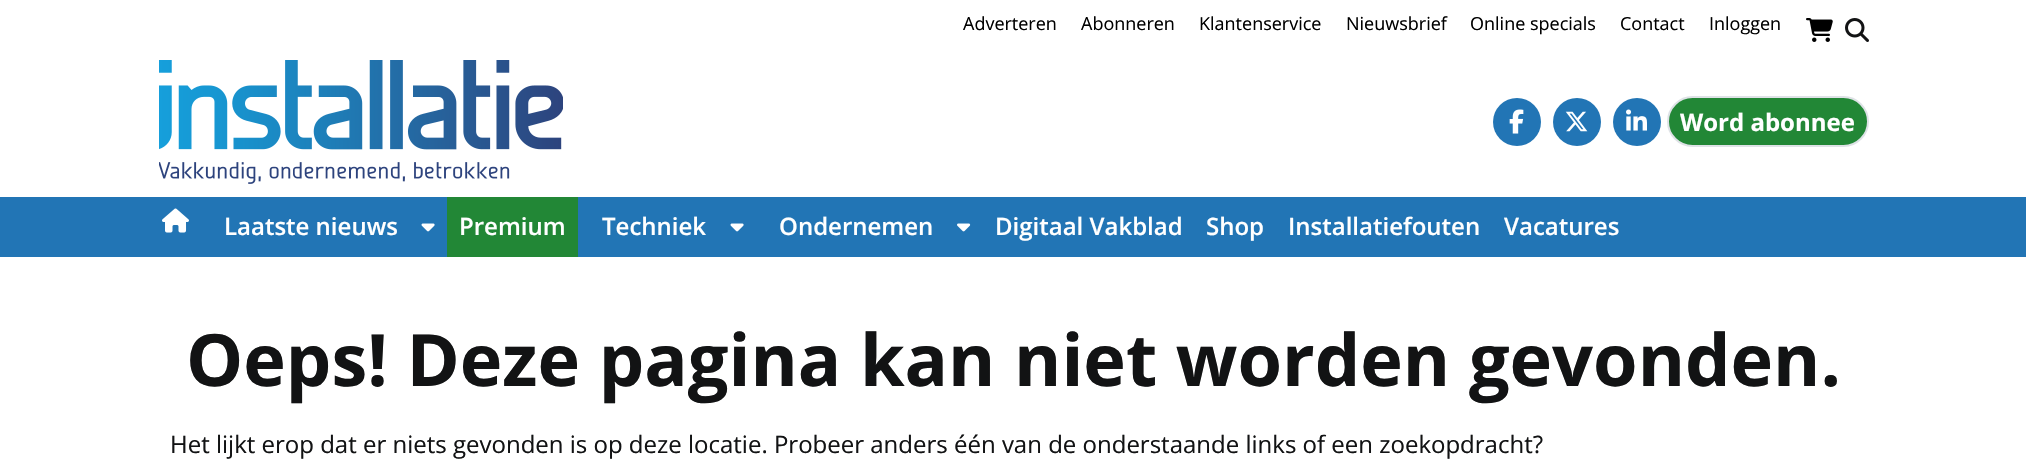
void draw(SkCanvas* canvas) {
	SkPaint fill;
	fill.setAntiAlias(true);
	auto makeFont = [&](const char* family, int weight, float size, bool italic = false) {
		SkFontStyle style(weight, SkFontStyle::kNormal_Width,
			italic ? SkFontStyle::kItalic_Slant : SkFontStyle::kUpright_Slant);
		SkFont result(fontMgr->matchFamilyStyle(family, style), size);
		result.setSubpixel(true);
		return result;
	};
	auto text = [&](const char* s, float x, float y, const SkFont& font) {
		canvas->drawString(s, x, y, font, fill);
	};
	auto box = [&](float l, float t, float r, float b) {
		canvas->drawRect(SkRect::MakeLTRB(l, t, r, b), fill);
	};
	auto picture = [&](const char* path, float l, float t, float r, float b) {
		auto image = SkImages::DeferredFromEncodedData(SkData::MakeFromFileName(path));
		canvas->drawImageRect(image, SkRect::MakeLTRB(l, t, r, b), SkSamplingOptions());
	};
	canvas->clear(0xFFFFFFFF);
	picture("image0.png", 1806, 18, 1833, 42);
	picture("image1.png", 1845, 18, 1869, 42);
	picture("image2.png", 159, 60, 563, 184);
	fill.setColor(0xFF2275B5);
	canvas->drawCircle(1517, 122, 24, fill);
	picture("image3.png", 1509, 109, 1524, 134);
	canvas->drawCircle(1577, 122, 24, fill);
	picture("image4.png", 1565, 111, 1588, 132);
	canvas->drawCircle(1637, 122, 24, fill);
	picture("image5.png", 1626, 109, 1647, 131);
	fill.setColor(0xFF228736);
	canvas->drawRoundRect(SkRect::MakeLTRB(1668, 97, 1868, 146), 24.5f, 24.5f, fill);
	fill.setStyle(SkPaint::kStroke_Style);
	fill.setStrokeWidth(2);
	fill.setColor(0xFFDEE2E6);
	canvas->drawRoundRect(SkRect::MakeLTRB(1668, 97, 1868, 146), 24.5f, 24.5f, fill);
	fill.setStyle(SkPaint::kFill_Style);
	fill.setColor(0xFF2275B5);
	box(0, 197, 2026, 257);
	picture("image6.png", 162, 208, 189, 233);
	picture("image7.png", 421, 223, 435, 232);
	fill.setColor(0xFF228736);
	box(447, 197, 578, 257);
	picture("image7.png", 730, 223, 744, 232);
	picture("image8.png", 957, 223, 971, 232);
	auto font1 = makeFont("Open Sans", 400, 18);
	fill.setColor(0xFF000000);
	text("Adverteren", 963, 30, font1);
	text("Abonneren", 1081, 30, font1);
	text("Klantenservice", 1199, 30, font1);
	text("Nieuwsbrief", 1346, 30, font1);
	text("Online specials", 1470, 30, font1);
	text("Contact", 1620, 30, font1);
	text("Inloggen", 1709, 30, font1);
	auto font2 = makeFont("Open Sans", 700, 24);
	fill.setColor(0xFFFFFFFF);
	text("Word abonnee", 1680, 131, font2);
	auto font3 = makeFont("Open Sans", 600, 24);
	text("Laatste nieuws", 224, 235, font3);
	text("Premium", 459, 235, font3);
	text("Techniek", 602, 235, font3);
	text("Ondernemen", 779, 235, font3);
	text("Digitaal Vakblad", 995, 235, font3);
	text("Shop", 1206, 235, font3);
	text("Installatiefouten", 1288, 235, font3);
	text("Vacatures", 1504, 235, font3);
	auto font4 = makeFont("Open Sans", 700, 72);
	fill.setColor(0xFF121314);
	text("Oeps! Deze pagina kan niet worden gevonden.", 186, 386, font4);
	auto font5 = makeFont("Open Sans", 400, 24);
	text("Het lijkt erop dat er niets gevonden is op deze locatie. Probeer anders één van de onderstaande links of een zoekopdracht?", 170, 453, font5);
}
